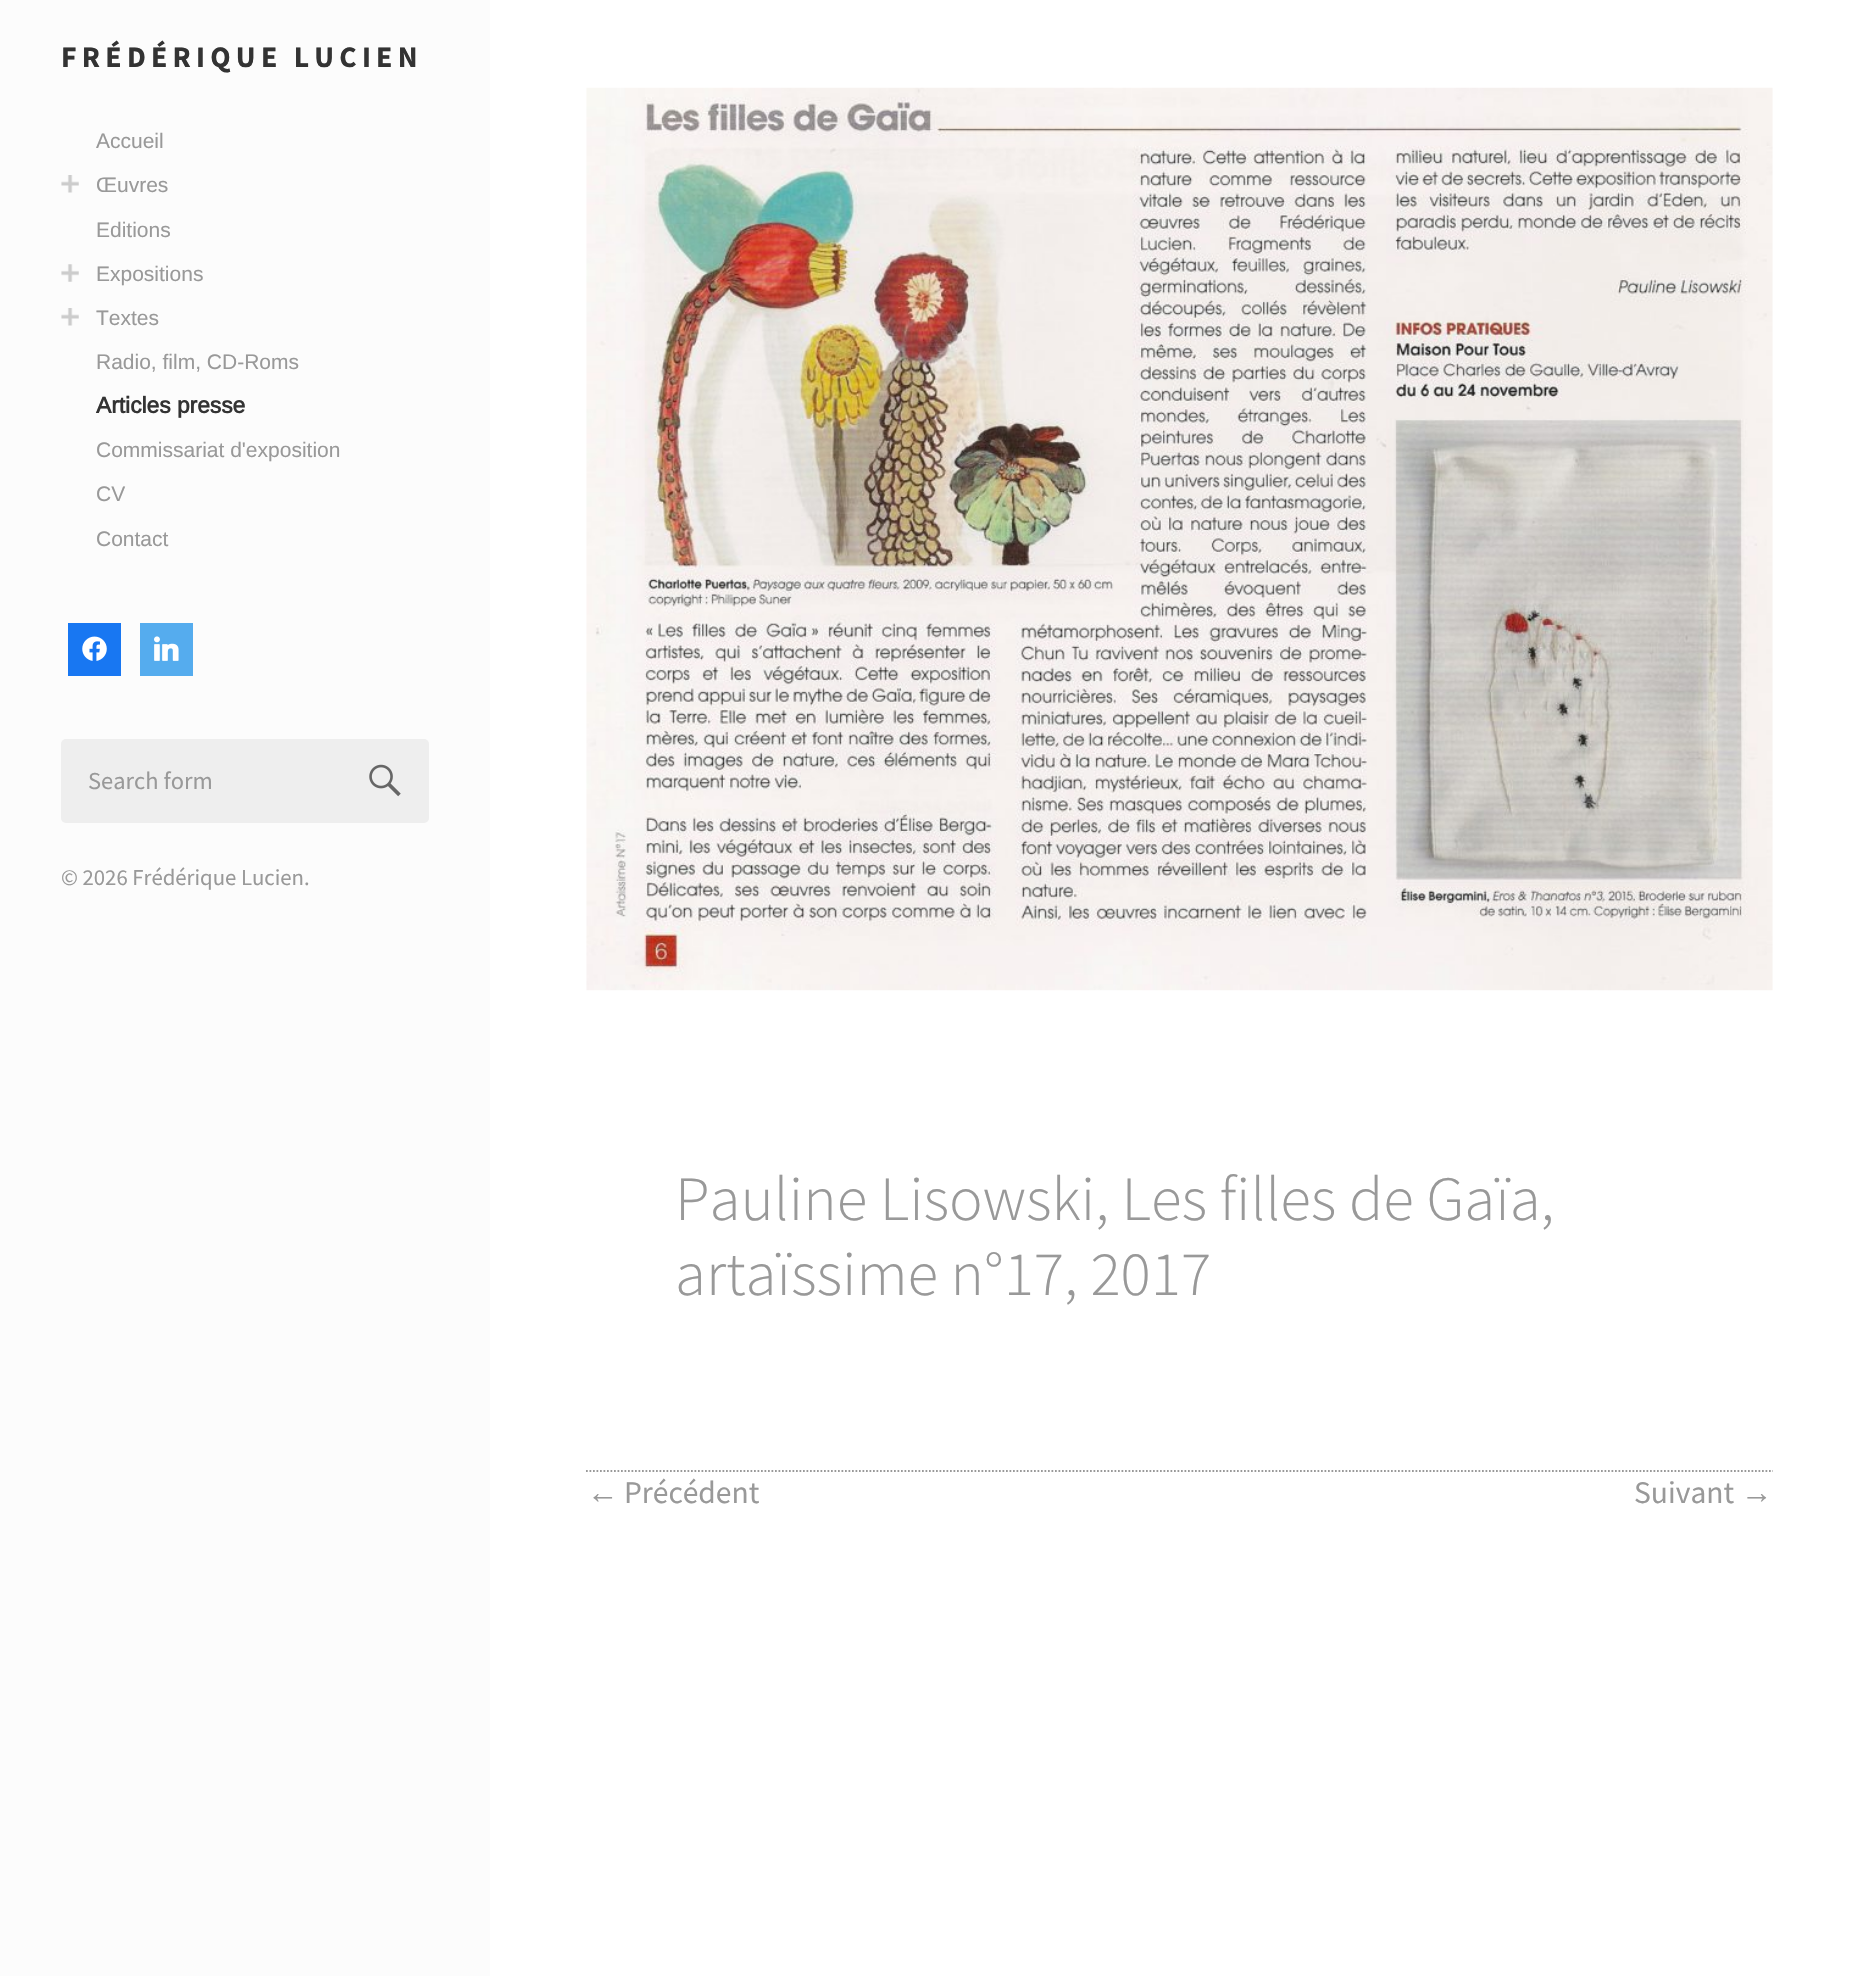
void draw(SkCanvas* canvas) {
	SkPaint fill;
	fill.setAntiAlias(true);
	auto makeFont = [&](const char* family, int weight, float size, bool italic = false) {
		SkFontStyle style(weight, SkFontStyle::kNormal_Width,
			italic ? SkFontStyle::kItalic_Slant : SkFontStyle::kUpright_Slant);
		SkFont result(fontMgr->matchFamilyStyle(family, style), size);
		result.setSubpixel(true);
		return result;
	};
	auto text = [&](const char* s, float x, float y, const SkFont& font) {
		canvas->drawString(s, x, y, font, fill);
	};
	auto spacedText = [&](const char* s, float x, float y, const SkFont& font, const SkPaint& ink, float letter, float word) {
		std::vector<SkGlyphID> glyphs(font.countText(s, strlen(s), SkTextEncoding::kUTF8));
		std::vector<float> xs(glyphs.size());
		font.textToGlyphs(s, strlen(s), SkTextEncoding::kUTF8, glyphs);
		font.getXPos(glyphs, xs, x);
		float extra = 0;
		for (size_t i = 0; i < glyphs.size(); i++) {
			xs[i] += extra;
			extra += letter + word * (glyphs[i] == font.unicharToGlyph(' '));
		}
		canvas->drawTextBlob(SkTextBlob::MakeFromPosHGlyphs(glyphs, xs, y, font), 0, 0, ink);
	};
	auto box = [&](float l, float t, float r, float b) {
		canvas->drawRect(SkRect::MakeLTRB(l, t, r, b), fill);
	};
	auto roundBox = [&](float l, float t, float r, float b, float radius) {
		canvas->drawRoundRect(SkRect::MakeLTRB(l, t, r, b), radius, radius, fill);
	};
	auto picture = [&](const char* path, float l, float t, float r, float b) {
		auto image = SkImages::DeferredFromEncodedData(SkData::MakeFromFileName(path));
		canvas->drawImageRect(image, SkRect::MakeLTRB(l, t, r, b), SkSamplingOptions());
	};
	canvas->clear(0xFFFFFFFF);
	fill.setColor(0xFFFCFCFC);
	box(0, 0, 490, 1976);
	picture("image0.png", 61, 175, 79, 193);
	picture("image1.png", 61, 264, 79, 282);
	picture("image0.png", 61, 308, 79, 326);
	fill.setColor(0xFF1877F2);
	box(68, 623, 121, 676);
	picture("image2.png", 82, 636, 107, 661);
	fill.setColor(0xFF55ACEE);
	box(140, 623, 193, 676);
	picture("image3.png", 154, 636, 179, 661);
	fill.setColor(0xFFEEEEEE);
	roundBox(61, 739, 429, 823, 5);
	picture("image4.png", 369, 764, 401, 797);
	picture("image5.png", 586, 87, 1773, 991);
	fill.setStyle(SkPaint::kStroke_Style);
	fill.setStrokeWidth(1.8f);
	fill.setColor(0xFF999999);
	fill.setPathEffect(SkDashPathEffect::Make({{1.75f, 1.75f}}, 0));
	canvas->drawPath(SkPathBuilder().moveTo(586, 1471).lineTo(1773, 1471).detach(), fill);
	fill.setPathEffect(nullptr);
	auto font1 = makeFont("Source Sans Pro", 700, 29.75f);
	fill.setStyle(SkPaint::kFill_Style);
	fill.setColor(0xFF333333);
	spacedText("FRÉDÉRIQUE LUCIEN", 61, 67, font1, fill, 5.25f, 0);
	auto font2 = makeFont("Arimo", 400, 21);
	fill.setColor(0xFF999999);
	text("Accueil", 96, 148, font2);
	text("Œuvres", 96, 192, font2);
	text("Editions", 96, 237, font2);
	text("Expositions", 96, 281, font2);
	text("Textes", 96, 325, font2);
	text("Radio, film, CD-Roms", 96, 369, font2);
	auto font3 = makeFont("Arimo", 700, 22.75f);
	fill.setColor(0xFF333333);
	text("Articles presse", 96, 413, font3);
	fill.setColor(0xFF999999);
	text("Commissariat d'exposition", 96, 457, font2);
	text("CV", 96, 501, font2);
	text("Contact", 96, 546, font2);
	auto font4 = makeFont("Source Sans Pro", 400, 24.5f);
	text("Search form", 88, 789, font4);
	auto font5 = makeFont("Source Sans Pro", 400, 22.75f);
	text("© 2026 Frédérique Lucien.", 61, 885, font5);
	auto font6 = makeFont("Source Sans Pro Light", 300, 63);
	text("Pauline Lisowski, Les filles de Gaïa,", 675, 1220, font6);
	text("artaïssime n°17, 2017", 675, 1295, font6);
	auto font7 = makeFont("Liberation Sans", 400, 31.5f);
	text("←", 587, 1503, font7);
	auto font8 = makeFont("Source Sans Pro", 400, 31.5f);
	text("Précédent", 624, 1503, font8);
	text("Suivant", 1634, 1503, font8);
	text("→", 1741, 1503, font7);
}
